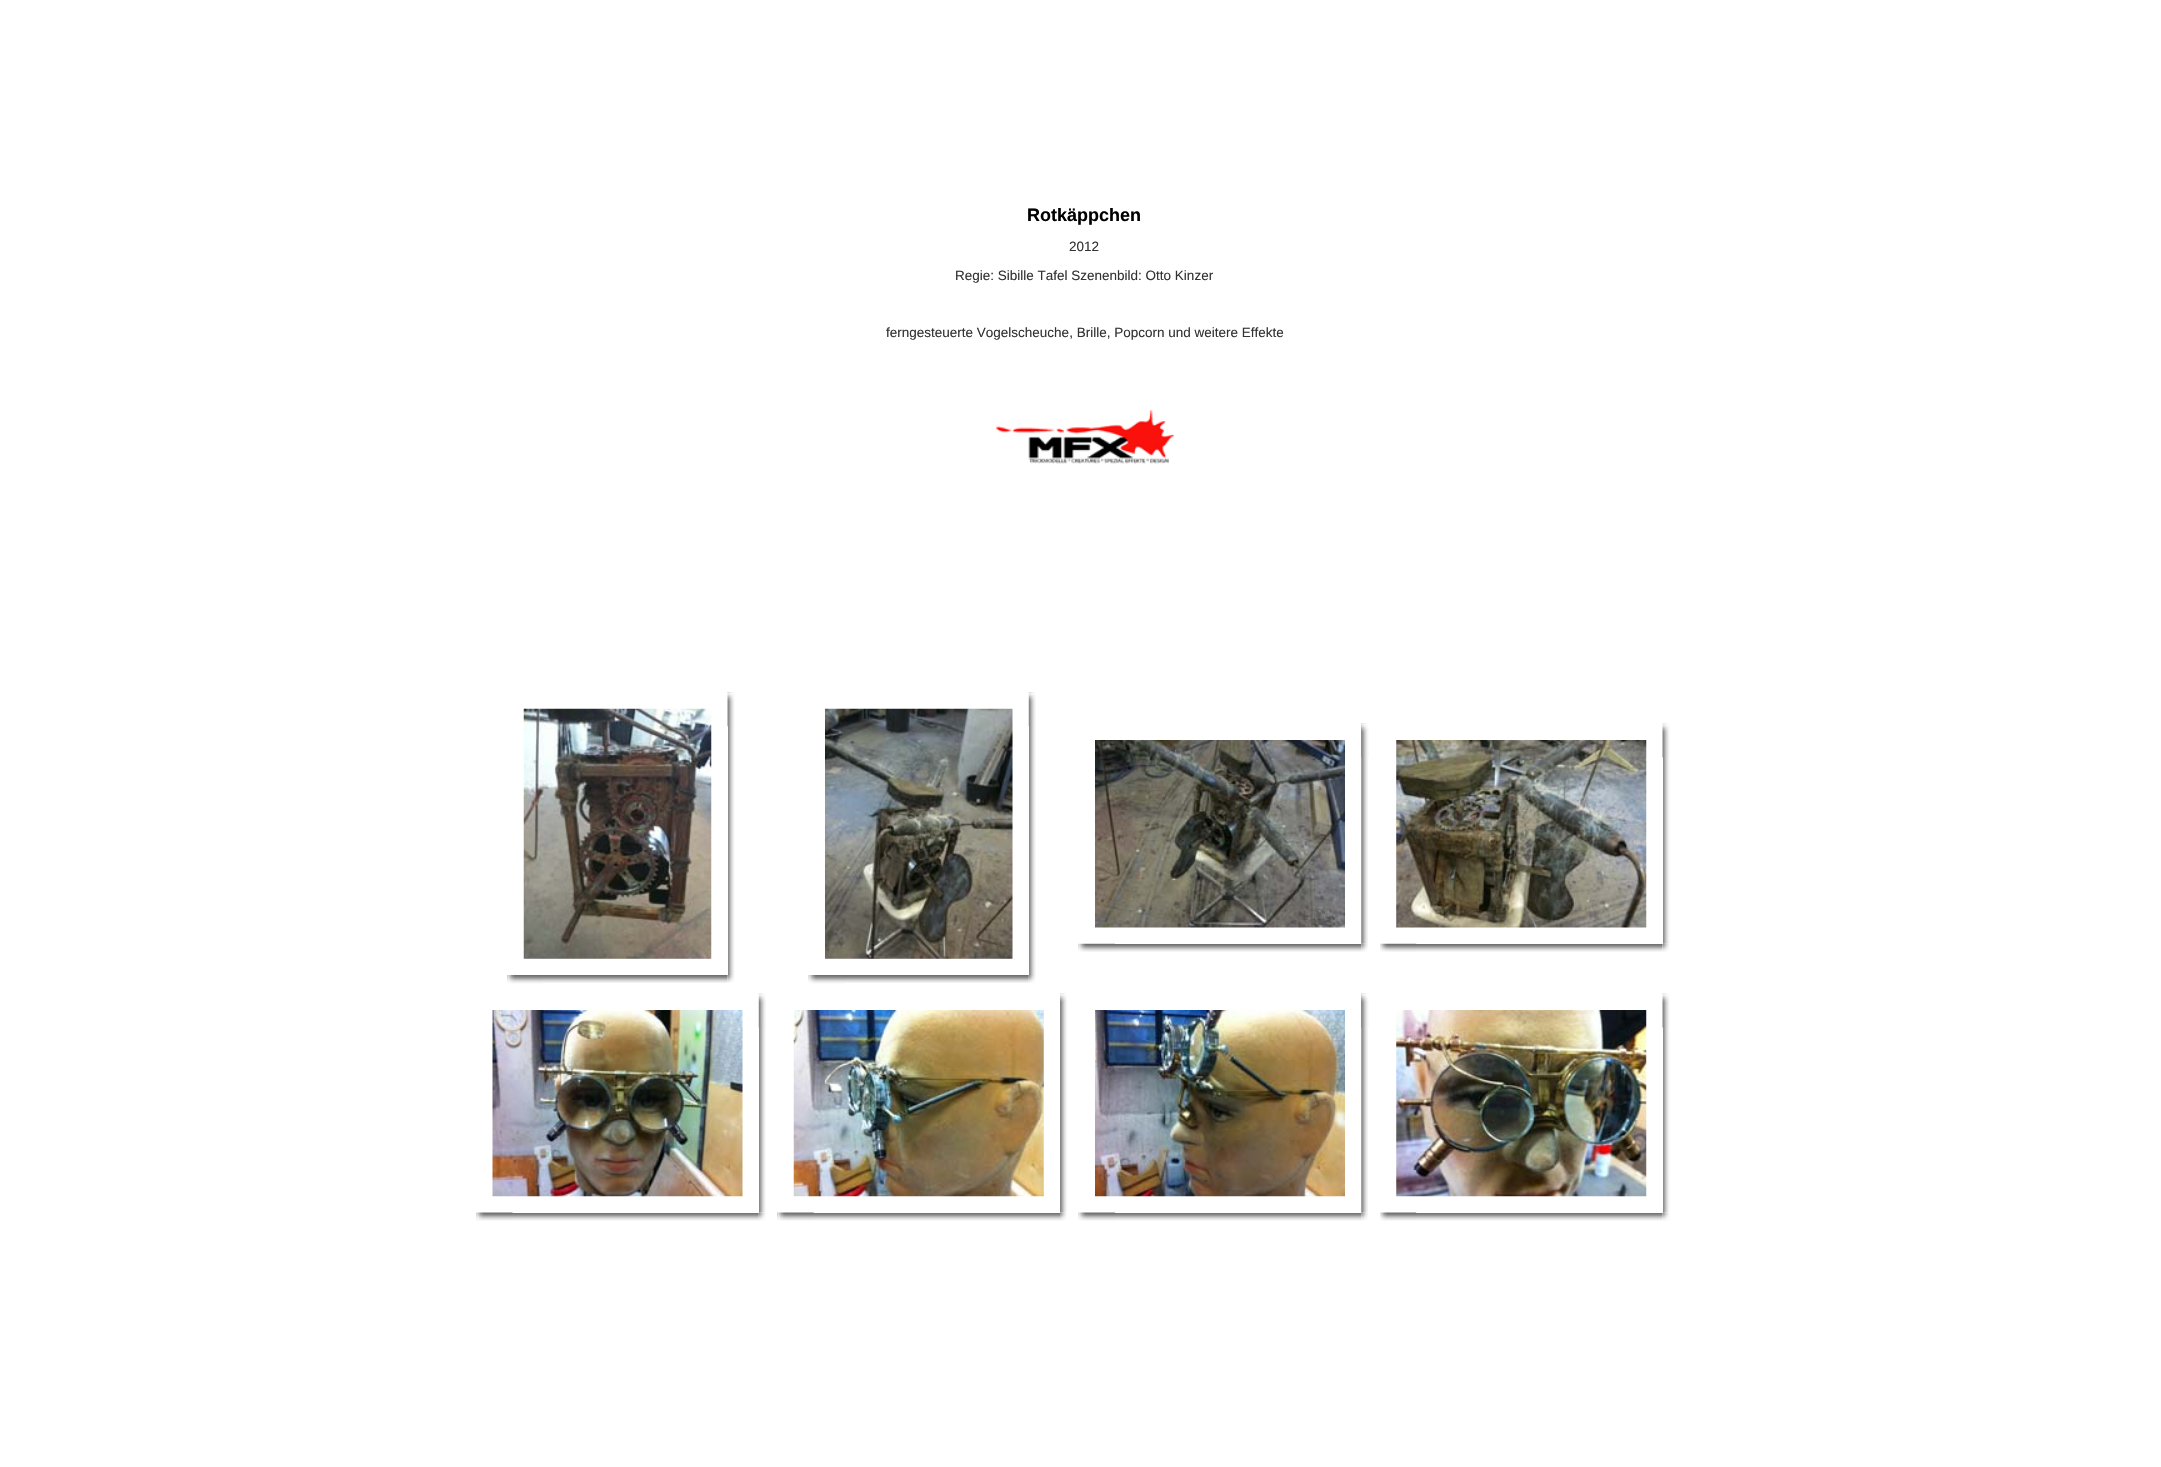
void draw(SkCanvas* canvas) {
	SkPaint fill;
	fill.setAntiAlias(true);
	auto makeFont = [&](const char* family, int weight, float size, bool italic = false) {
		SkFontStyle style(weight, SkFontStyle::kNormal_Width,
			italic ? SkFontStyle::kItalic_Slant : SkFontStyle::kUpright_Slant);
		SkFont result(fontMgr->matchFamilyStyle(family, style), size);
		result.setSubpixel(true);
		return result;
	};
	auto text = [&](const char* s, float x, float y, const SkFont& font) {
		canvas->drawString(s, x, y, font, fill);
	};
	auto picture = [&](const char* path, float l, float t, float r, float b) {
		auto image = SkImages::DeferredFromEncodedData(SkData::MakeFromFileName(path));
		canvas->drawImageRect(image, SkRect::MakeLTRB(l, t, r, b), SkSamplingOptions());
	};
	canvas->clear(0xFFFFFFFF);
	picture("image0.png", 996, 410, 1174, 464);
	picture("image2.png", 727, 692, 735, 975);
	fill.setStyle(SkPaint::kStroke_Style);
	fill.setStrokeWidth(16);
	fill.setColor(0xFFFFFFFF);
	canvas->drawRect(SkRect::MakeLTRB(516, 701, 720, 967), fill);
	picture("image1.png", 523, 708, 712, 959);
	picture("image3.png", 727, 692, 734, 727);
	picture("image4.png", 507, 975, 728, 983);
	picture("image5.png", 507, 975, 543, 984);
	picture("image6.png", 727, 975, 735, 983);
	picture("image8.png", 1028, 692, 1036, 975);
	canvas->drawRect(SkRect::MakeLTRB(817, 701, 1021, 967), fill);
	picture("image7.png", 825, 708, 1013, 959);
	picture("image9.png", 1028, 692, 1036, 727);
	picture("image10.png", 808, 975, 1029, 983);
	picture("image11.png", 809, 975, 845, 984);
	picture("image12.png", 1029, 975, 1036, 983);
	picture("image14.png", 1361, 723, 1368, 944);
	picture("image16.png", 1078, 943, 1362, 952);
	canvas->drawRect(SkRect::MakeLTRB(1087, 732, 1353, 936), fill);
	picture("image13.png", 1095, 740, 1345, 928);
	picture("image15.png", 1361, 724, 1369, 758);
	picture("image17.png", 1079, 943, 1115, 952);
	picture("image18.png", 1361, 943, 1368, 952);
	picture("image20.png", 1662, 723, 1670, 944);
	canvas->drawRect(SkRect::MakeLTRB(1388, 732, 1655, 936), fill);
	picture("image19.png", 1396, 740, 1647, 928);
	picture("image21.png", 1662, 723, 1669, 758);
	picture("image22.png", 1416, 944, 1663, 952);
	picture("image23.png", 1380, 943, 1417, 952);
	picture("image24.png", 1662, 943, 1670, 952);
	picture("image26.png", 758, 993, 766, 1213);
	canvas->drawRect(SkRect::MakeLTRB(484, 1002, 751, 1205), fill);
	picture("image25.png", 492, 1010, 743, 1197);
	picture("image27.png", 758, 993, 766, 1028);
	picture("image28.png", 476, 1213, 759, 1221);
	picture("image29.png", 476, 1212, 513, 1220);
	picture("image30.png", 758, 1212, 766, 1221);
	picture("image34.png", 777, 1212, 1060, 1221);
	canvas->drawRect(SkRect::MakeLTRB(786, 1002, 1052, 1205), fill);
	picture("image31.png", 793, 1010, 1044, 1197);
	picture("image32.png", 1060, 993, 1067, 1213);
	picture("image33.png", 1060, 993, 1067, 1002);
	picture("image35.png", 777, 1212, 814, 1221);
	picture("image36.png", 1060, 1212, 1067, 1221);
	picture("image38.png", 1361, 993, 1368, 1213);
	picture("image39.png", 1078, 1212, 1362, 1221);
	canvas->drawRect(SkRect::MakeLTRB(1087, 1002, 1353, 1205), fill);
	picture("image37.png", 1095, 1010, 1345, 1197);
	picture("image15.png", 1361, 994, 1369, 1028);
	picture("image40.png", 1079, 1212, 1115, 1221);
	picture("image41.png", 1361, 1212, 1368, 1221);
	picture("image43.png", 1662, 993, 1670, 1213);
	canvas->drawRect(SkRect::MakeLTRB(1388, 1002, 1655, 1205), fill);
	picture("image42.png", 1396, 1010, 1647, 1197);
	picture("image21.png", 1662, 993, 1669, 1028);
	picture("image44.png", 1416, 1213, 1663, 1221);
	picture("image45.png", 1380, 1212, 1417, 1221);
	picture("image46.png", 1662, 1212, 1670, 1221);
	auto font1 = makeFont("Liberation Sans", 700, 18);
	fill.setStyle(SkPaint::kFill_Style);
	fill.setColor(0xFF000000);
	text("Rotkäppchen", 1027, 221, font1);
	auto font2 = makeFont("Liberation Sans", 400, 13.5f);
	fill.setColor(0xFF333333);
	text("2012", 1069, 251, font2);
	text("Regie: Sibille Tafel Szenenbild: Otto Kinzer", 955, 280, font2);
	text("ferngesteuerte Vogelscheuche, Brille, Popcorn und weitere Effekte", 886, 337, font2);
}
